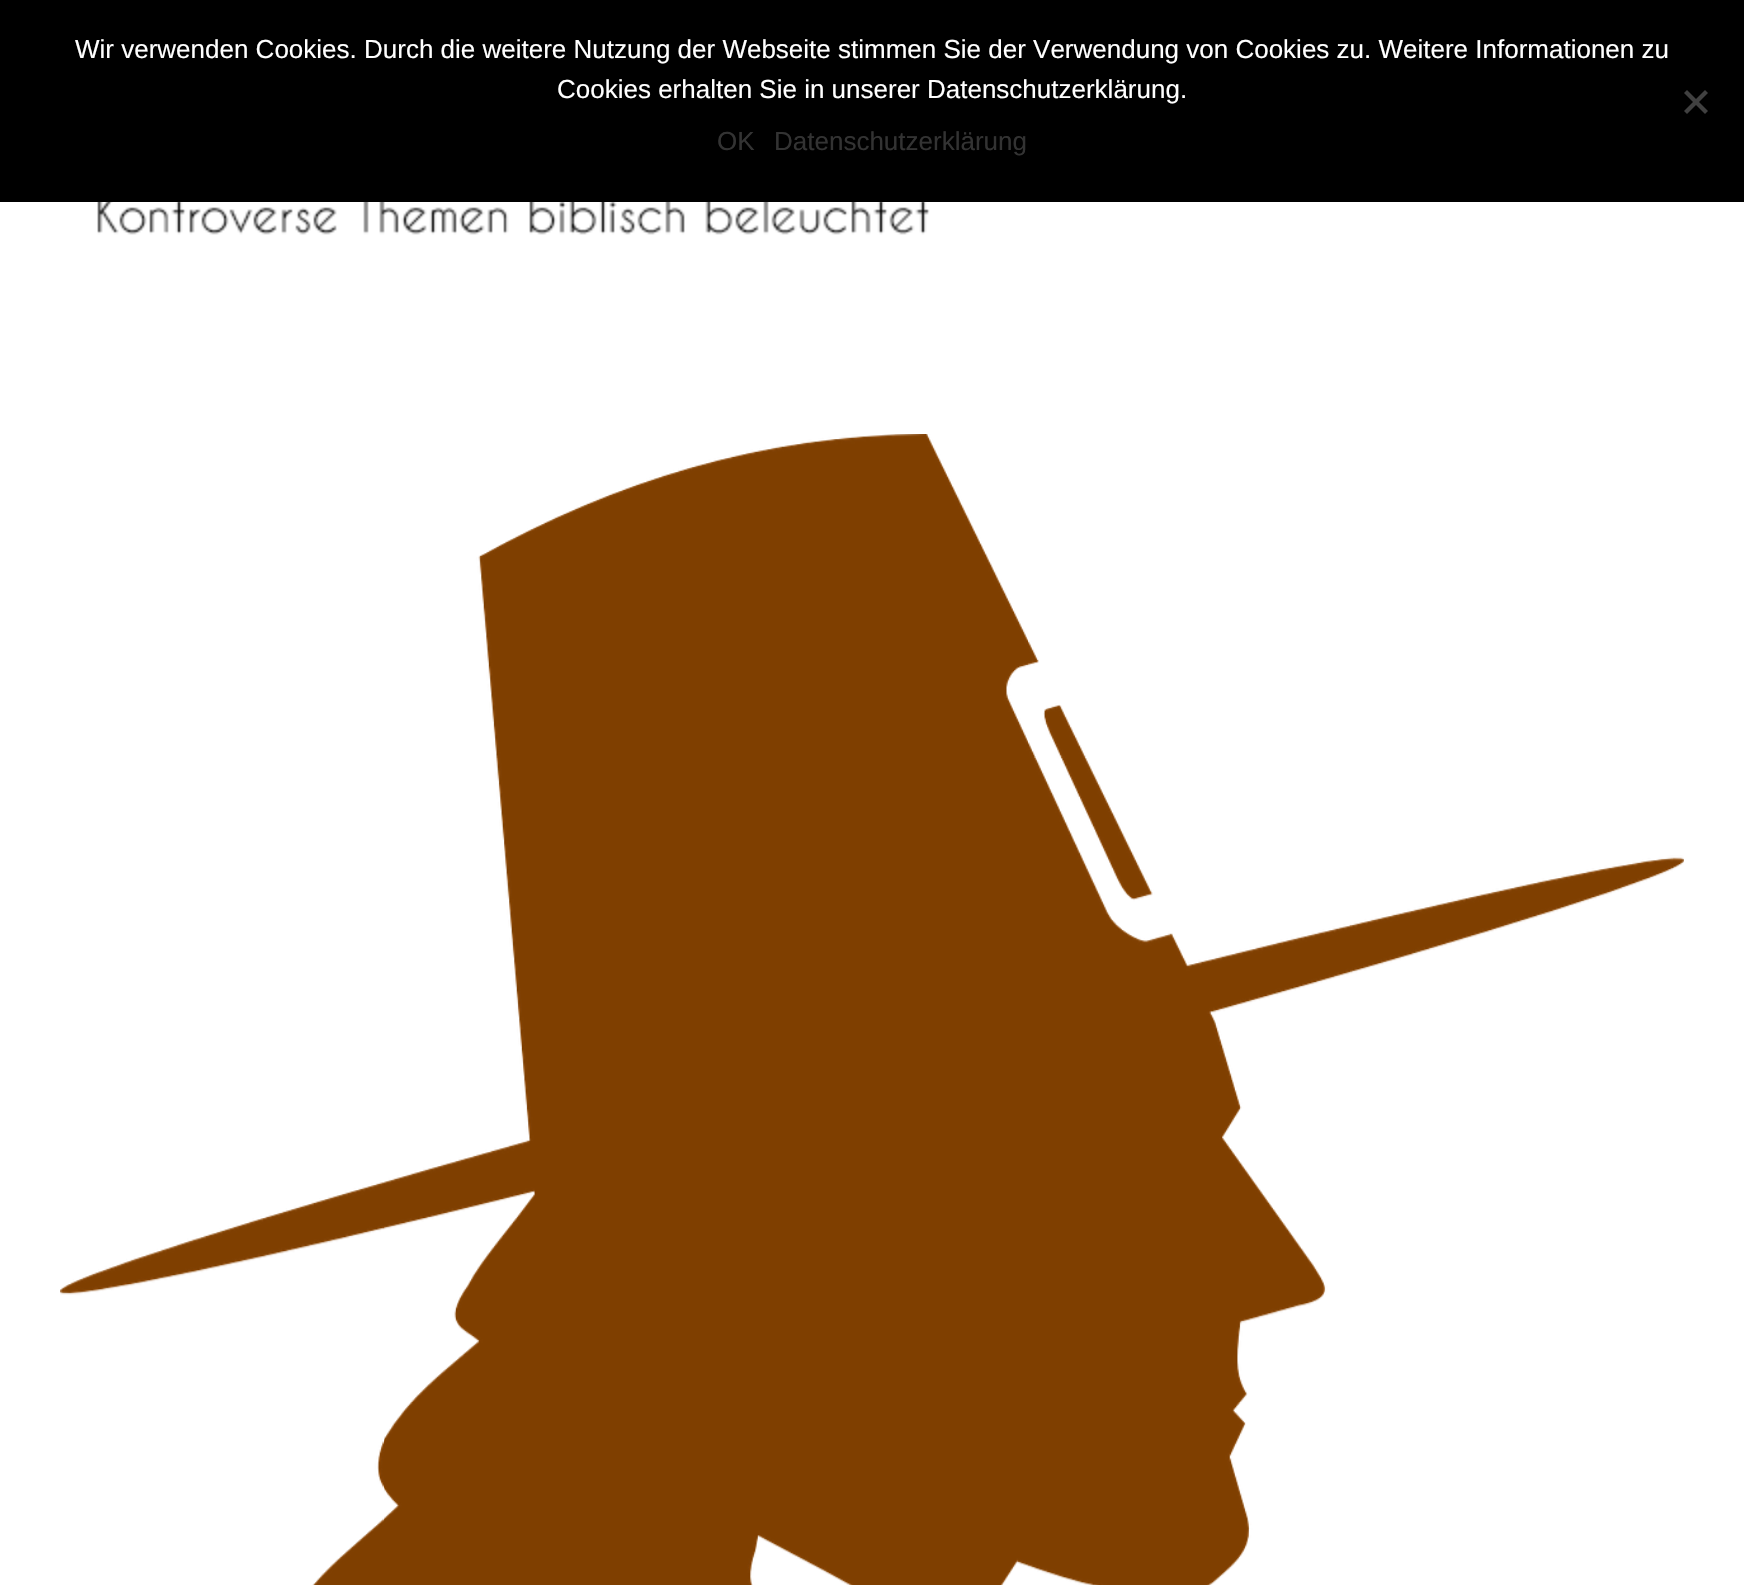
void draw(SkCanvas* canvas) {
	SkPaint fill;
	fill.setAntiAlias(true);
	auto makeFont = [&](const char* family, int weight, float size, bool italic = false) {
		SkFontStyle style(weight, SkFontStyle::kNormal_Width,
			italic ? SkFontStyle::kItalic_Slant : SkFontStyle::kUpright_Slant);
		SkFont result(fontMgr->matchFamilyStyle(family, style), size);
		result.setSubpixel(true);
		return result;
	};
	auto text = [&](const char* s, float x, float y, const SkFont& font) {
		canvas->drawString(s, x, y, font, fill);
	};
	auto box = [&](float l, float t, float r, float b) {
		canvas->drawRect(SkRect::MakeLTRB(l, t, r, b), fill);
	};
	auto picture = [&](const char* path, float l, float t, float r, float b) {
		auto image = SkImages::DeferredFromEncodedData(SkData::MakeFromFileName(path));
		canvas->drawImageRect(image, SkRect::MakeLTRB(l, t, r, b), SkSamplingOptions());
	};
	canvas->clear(0xFFFFFFFF);
	fill.setColor(0xFF000000);
	box(0, 0, 1744, 202);
	fill.setColor(0xFF404040);
	canvas->drawPath(SkPathBuilder().moveTo(1705, 90).lineTo(1708, 93).lineTo(1687, 114).lineTo(1684, 111).close().detach(), fill);
	canvas->drawPath(SkPathBuilder().moveTo(1684, 93).lineTo(1687, 90).lineTo(1708, 111).lineTo(1705, 114).close().detach(), fill);
	picture("image0.png", 91, 202, 930, 235);
	picture("image1.png", 60, 434, 1684, 1585);
	auto font1 = makeFont("Liberation Sans", 400, 26);
	fill.setColor(0xFFFFFFFF);
	text("Wir verwenden Cookies. Durch die weitere Nutzung der Webseite stimmen Sie der Verwendung von Cookies zu. Weitere Informationen zu", 75, 58, font1);
	text("Cookies erhalten Sie in unserer Datenschutzerklärung.", 557, 98, font1);
	fill.setColor(0xFF333333);
	text("OK", 717, 150, font1);
	text("Datenschutzerklärung", 774, 150, font1);
}
